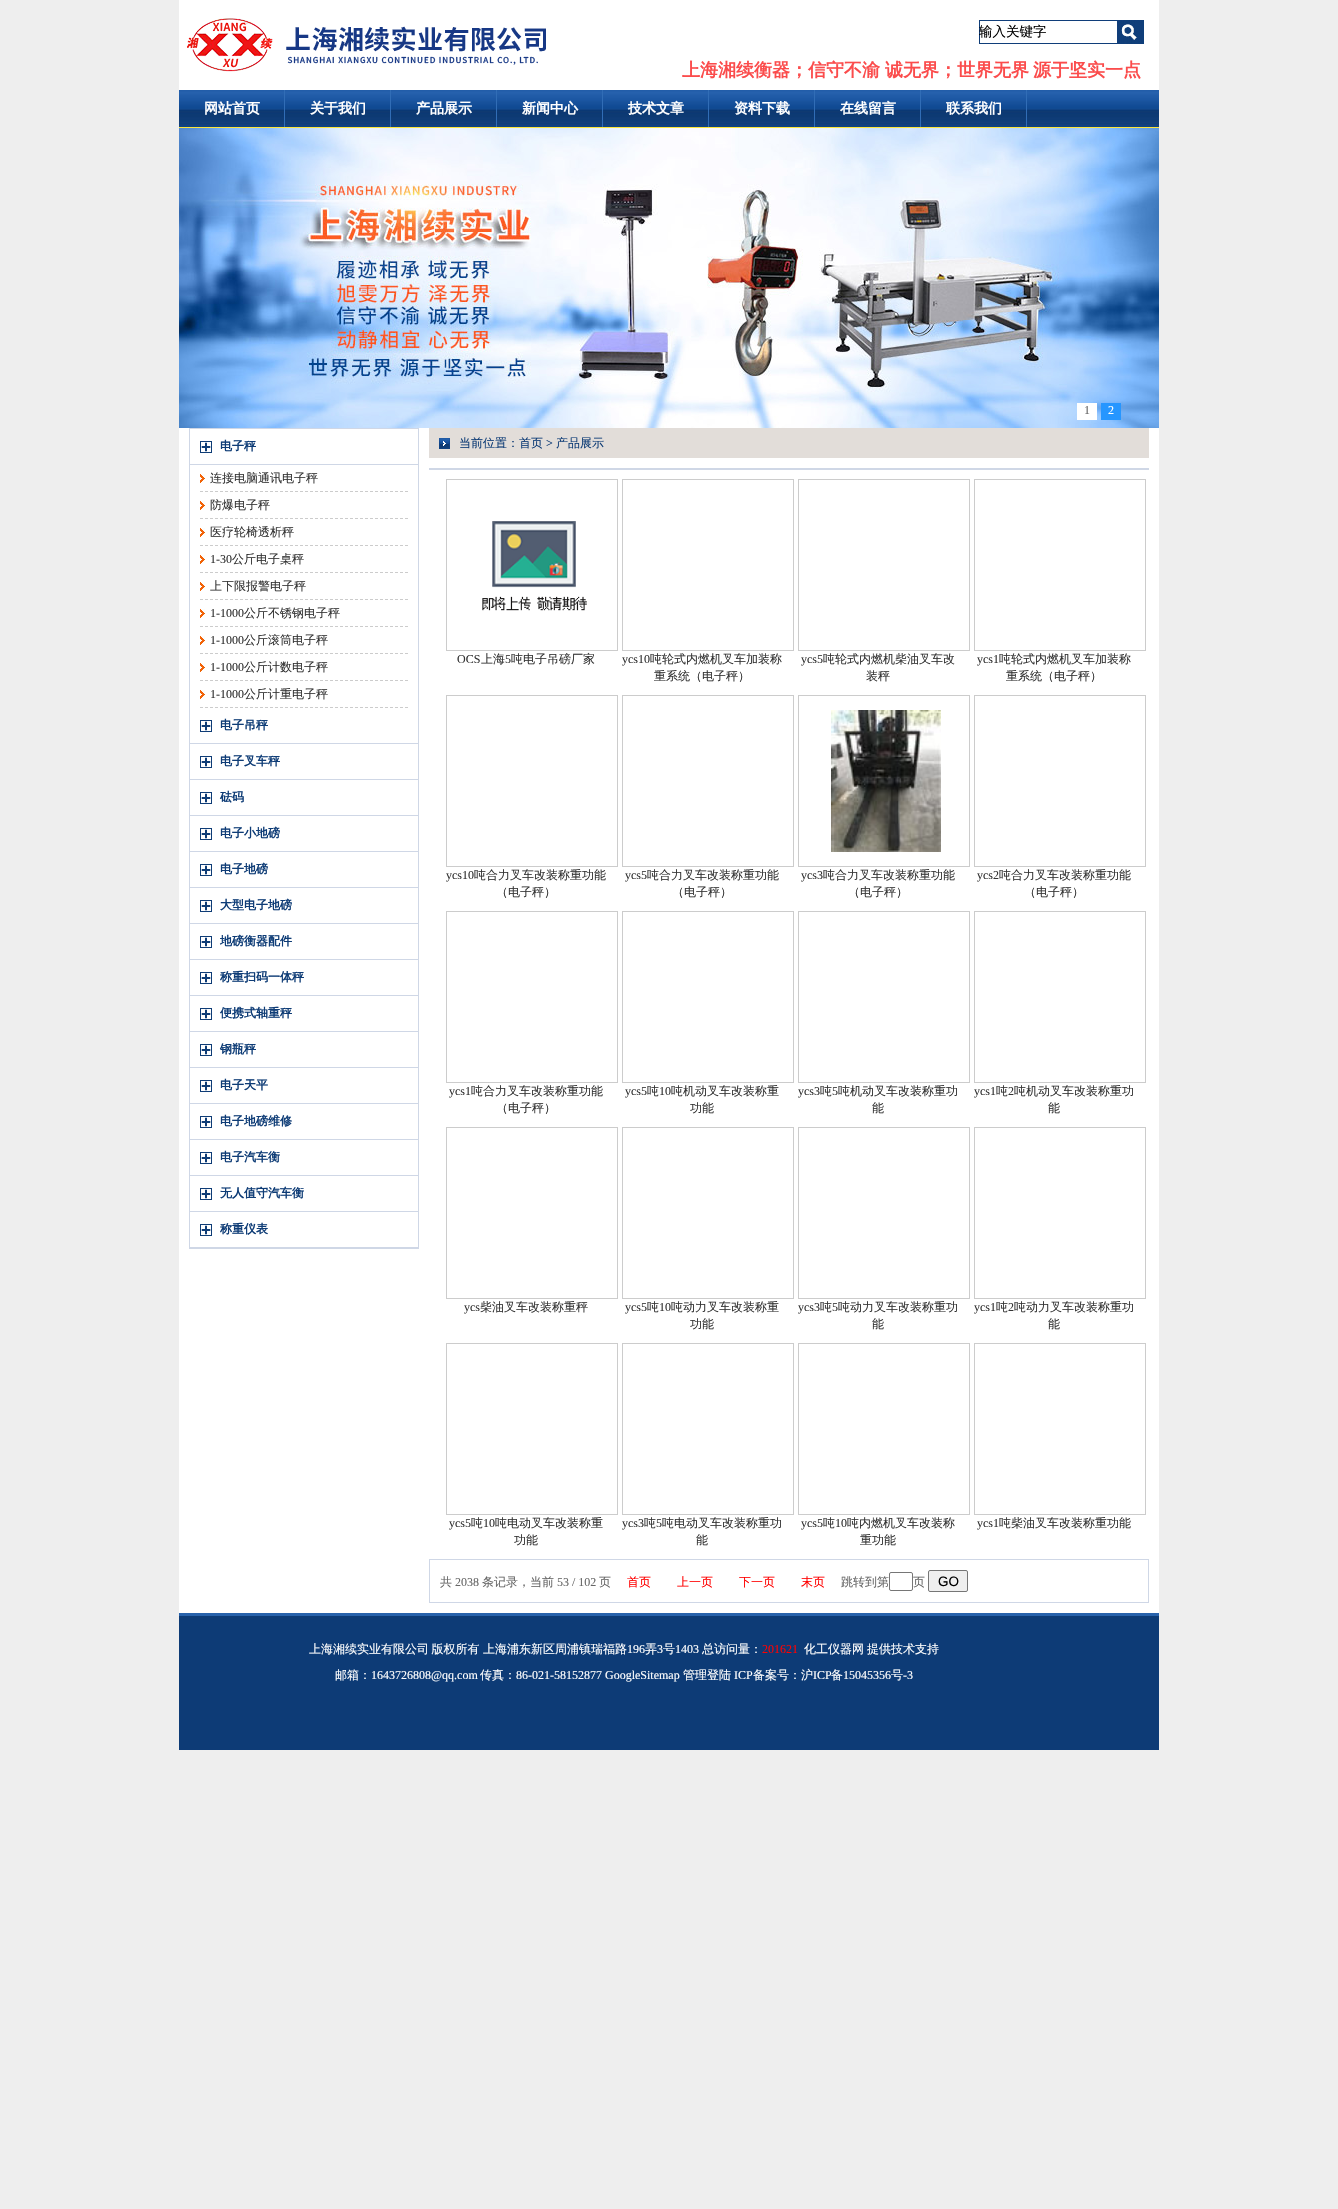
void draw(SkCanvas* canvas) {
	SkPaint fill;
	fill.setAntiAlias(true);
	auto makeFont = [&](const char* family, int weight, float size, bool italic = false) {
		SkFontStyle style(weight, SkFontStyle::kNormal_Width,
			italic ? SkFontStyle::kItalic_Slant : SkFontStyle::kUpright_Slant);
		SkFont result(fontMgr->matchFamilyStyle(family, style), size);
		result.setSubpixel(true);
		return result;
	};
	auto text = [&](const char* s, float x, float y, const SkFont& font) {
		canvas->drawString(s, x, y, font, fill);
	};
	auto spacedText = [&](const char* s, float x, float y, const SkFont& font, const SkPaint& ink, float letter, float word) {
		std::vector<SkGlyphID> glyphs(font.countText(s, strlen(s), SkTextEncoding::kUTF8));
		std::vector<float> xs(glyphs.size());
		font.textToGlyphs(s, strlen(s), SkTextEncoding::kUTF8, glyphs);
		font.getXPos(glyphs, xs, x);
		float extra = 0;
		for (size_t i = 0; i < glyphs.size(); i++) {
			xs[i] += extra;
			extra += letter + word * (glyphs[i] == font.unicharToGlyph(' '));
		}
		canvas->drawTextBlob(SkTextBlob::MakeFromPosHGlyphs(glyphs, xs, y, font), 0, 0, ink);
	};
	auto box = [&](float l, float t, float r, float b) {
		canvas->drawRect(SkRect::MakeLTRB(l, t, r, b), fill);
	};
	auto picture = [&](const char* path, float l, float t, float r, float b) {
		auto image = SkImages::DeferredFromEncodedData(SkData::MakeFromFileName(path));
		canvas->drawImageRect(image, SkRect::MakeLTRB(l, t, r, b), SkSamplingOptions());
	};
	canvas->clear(0xFFEEEEEE);
	fill.setColor(0xFFFFFFFF);
	box(179, 0, 1159, 1613);
	picture("image0.png", 187, 18, 546, 72);
	picture("image1.png", 979, 20, 1117, 44);
	picture("image2.png", 1117, 20, 1144, 44);
	picture("image3.png", 179, 90, 1159, 127);
	fill.setColor(0xFFFCE63B);
	box(179, 127, 1159, 128);
	fill.setColor(0xFF316DB6);
	box(284, 90, 285, 127);
	box(390, 90, 391, 127);
	box(496, 90, 497, 127);
	box(602, 90, 603, 127);
	box(708, 90, 709, 127);
	box(814, 90, 815, 127);
	box(920, 90, 921, 127);
	box(1026, 90, 1027, 127);
	picture("image4.png", 179, 128, 1159, 428);
	fill.setColor(0xFFFFFFFF);
	box(1077, 403, 1097, 420);
	fill.setColor(0xFF2696FF);
	box(1101, 403, 1121, 420);
	fill.setStyle(SkPaint::kStroke_Style);
	fill.setStrokeWidth(1);
	fill.setColor(0xFFCFD7E6);
	canvas->drawRect(SkRect::MakeLTRB(189.5f, 428.5f, 418.5f, 1248.5f), fill);
	picture("image5.png", 200, 441, 212, 453);
	fill.setStyle(SkPaint::kFill_Style);
	box(190, 464, 418, 465);
	picture("image6.png", 200, 474, 205, 483);
	fill.setStyle(SkPaint::kStroke_Style);
	fill.setColor(0xFFCCCCCC);
	fill.setPathEffect(SkDashPathEffect::Make({{3, 2}}, 0));
	canvas->drawPath(SkPathBuilder().moveTo(200, 491.5f).lineTo(408, 491.5f).detach(), fill);
	fill.setPathEffect(nullptr);
	picture("image6.png", 200, 501, 205, 510);
	fill.setPathEffect(SkDashPathEffect::Make({{3, 2}}, 0));
	canvas->drawPath(SkPathBuilder().moveTo(200, 518.5f).lineTo(408, 518.5f).detach(), fill);
	fill.setPathEffect(nullptr);
	picture("image6.png", 200, 528, 205, 537);
	fill.setPathEffect(SkDashPathEffect::Make({{3, 2}}, 0));
	canvas->drawPath(SkPathBuilder().moveTo(200, 545.5f).lineTo(408, 545.5f).detach(), fill);
	fill.setPathEffect(nullptr);
	picture("image6.png", 200, 555, 205, 564);
	fill.setPathEffect(SkDashPathEffect::Make({{3, 2}}, 0));
	canvas->drawPath(SkPathBuilder().moveTo(200, 572.5f).lineTo(408, 572.5f).detach(), fill);
	fill.setPathEffect(nullptr);
	picture("image6.png", 200, 582, 205, 591);
	fill.setPathEffect(SkDashPathEffect::Make({{3, 2}}, 0));
	canvas->drawPath(SkPathBuilder().moveTo(200, 599.5f).lineTo(408, 599.5f).detach(), fill);
	fill.setPathEffect(nullptr);
	picture("image6.png", 200, 609, 205, 618);
	fill.setPathEffect(SkDashPathEffect::Make({{3, 2}}, 0));
	canvas->drawPath(SkPathBuilder().moveTo(200, 626.5f).lineTo(408, 626.5f).detach(), fill);
	fill.setPathEffect(nullptr);
	picture("image6.png", 200, 636, 205, 645);
	fill.setPathEffect(SkDashPathEffect::Make({{3, 2}}, 0));
	canvas->drawPath(SkPathBuilder().moveTo(200, 653.5f).lineTo(408, 653.5f).detach(), fill);
	fill.setPathEffect(nullptr);
	picture("image6.png", 200, 663, 205, 672);
	fill.setPathEffect(SkDashPathEffect::Make({{3, 2}}, 0));
	canvas->drawPath(SkPathBuilder().moveTo(200, 680.5f).lineTo(408, 680.5f).detach(), fill);
	fill.setPathEffect(nullptr);
	picture("image6.png", 200, 690, 205, 699);
	fill.setPathEffect(SkDashPathEffect::Make({{3, 2}}, 0));
	canvas->drawPath(SkPathBuilder().moveTo(200, 707.5f).lineTo(408, 707.5f).detach(), fill);
	fill.setPathEffect(nullptr);
	picture("image5.png", 200, 720, 212, 732);
	fill.setStyle(SkPaint::kFill_Style);
	fill.setColor(0xFFCFD7E6);
	box(190, 743, 418, 744);
	picture("image5.png", 200, 756, 212, 768);
	box(190, 779, 418, 780);
	picture("image5.png", 200, 792, 212, 804);
	box(190, 815, 418, 816);
	picture("image5.png", 200, 828, 212, 840);
	box(190, 851, 418, 852);
	picture("image5.png", 200, 864, 212, 876);
	box(190, 887, 418, 888);
	picture("image5.png", 200, 900, 212, 912);
	box(190, 923, 418, 924);
	picture("image5.png", 200, 936, 212, 948);
	box(190, 959, 418, 960);
	picture("image5.png", 200, 972, 212, 984);
	box(190, 995, 418, 996);
	picture("image5.png", 200, 1008, 212, 1020);
	box(190, 1031, 418, 1032);
	picture("image5.png", 200, 1044, 212, 1056);
	box(190, 1067, 418, 1068);
	picture("image5.png", 200, 1080, 212, 1092);
	box(190, 1103, 418, 1104);
	picture("image5.png", 200, 1116, 212, 1128);
	box(190, 1139, 418, 1140);
	picture("image5.png", 200, 1152, 212, 1164);
	box(190, 1175, 418, 1176);
	picture("image5.png", 200, 1188, 212, 1200);
	box(190, 1211, 418, 1212);
	picture("image5.png", 200, 1224, 212, 1236);
	box(190, 1247, 418, 1248);
	fill.setColor(0xFFE2DDD9);
	box(429, 428, 1149, 458);
	picture("image7.png", 439, 438, 450, 449);
	fill.setColor(0xFFCFD7E6);
	box(429, 468, 1149, 470);
	fill.setStyle(SkPaint::kStroke_Style);
	fill.setColor(0xFFCCCCCC);
	canvas->drawRect(SkRect::MakeLTRB(446.5f, 479.5f, 617.5f, 650.5f), fill);
	picture("image8.png", 482, 521, 587, 611);
	canvas->drawRect(SkRect::MakeLTRB(622.5f, 479.5f, 793.5f, 650.5f), fill);
	canvas->drawRect(SkRect::MakeLTRB(798.5f, 479.5f, 969.5f, 650.5f), fill);
	canvas->drawRect(SkRect::MakeLTRB(974.5f, 479.5f, 1145.5f, 650.5f), fill);
	canvas->drawRect(SkRect::MakeLTRB(446.5f, 695.5f, 617.5f, 866.5f), fill);
	canvas->drawRect(SkRect::MakeLTRB(622.5f, 695.5f, 793.5f, 866.5f), fill);
	canvas->drawRect(SkRect::MakeLTRB(798.5f, 695.5f, 969.5f, 866.5f), fill);
	picture("image9.png", 831, 710, 941, 852);
	canvas->drawRect(SkRect::MakeLTRB(974.5f, 695.5f, 1145.5f, 866.5f), fill);
	canvas->drawRect(SkRect::MakeLTRB(446.5f, 911.5f, 617.5f, 1082.5f), fill);
	canvas->drawRect(SkRect::MakeLTRB(622.5f, 911.5f, 793.5f, 1082.5f), fill);
	canvas->drawRect(SkRect::MakeLTRB(798.5f, 911.5f, 969.5f, 1082.5f), fill);
	canvas->drawRect(SkRect::MakeLTRB(974.5f, 911.5f, 1145.5f, 1082.5f), fill);
	canvas->drawRect(SkRect::MakeLTRB(446.5f, 1127.5f, 617.5f, 1298.5f), fill);
	canvas->drawRect(SkRect::MakeLTRB(622.5f, 1127.5f, 793.5f, 1298.5f), fill);
	canvas->drawRect(SkRect::MakeLTRB(798.5f, 1127.5f, 969.5f, 1298.5f), fill);
	canvas->drawRect(SkRect::MakeLTRB(974.5f, 1127.5f, 1145.5f, 1298.5f), fill);
	canvas->drawRect(SkRect::MakeLTRB(446.5f, 1343.5f, 617.5f, 1514.5f), fill);
	canvas->drawRect(SkRect::MakeLTRB(622.5f, 1343.5f, 793.5f, 1514.5f), fill);
	canvas->drawRect(SkRect::MakeLTRB(798.5f, 1343.5f, 969.5f, 1514.5f), fill);
	canvas->drawRect(SkRect::MakeLTRB(974.5f, 1343.5f, 1145.5f, 1514.5f), fill);
	fill.setColor(0xFFCFD7E6);
	canvas->drawRect(SkRect::MakeLTRB(429.5f, 1559.5f, 1148.5f, 1602.5f), fill);
	fill.setColor(0xFF767676);
	canvas->drawRoundRect(SkRect::MakeLTRB(889.5f, 1572.5f, 912.5f, 1590.5f), 1.5f, 1.5f, fill);
	fill.setStyle(SkPaint::kFill_Style);
	fill.setColor(0xFFEFEFEF);
	canvas->drawRoundRect(SkRect::MakeLTRB(928.5f, 1570.5f, 967.5f, 1591.5f), 1.5f, 1.5f, fill);
	fill.setStyle(SkPaint::kStroke_Style);
	fill.setColor(0xFF767676);
	canvas->drawRoundRect(SkRect::MakeLTRB(928.5f, 1570.5f, 967.5f, 1591.5f), 1.5f, 1.5f, fill);
	fill.setStyle(SkPaint::kFill_Style);
	fill.setColor(0xFF0D3B76);
	box(179, 1616, 1159, 1750);
	fill.setColor(0xFF2862AB);
	box(179, 1613, 1159, 1616);
	auto font1 = makeFont("WenQuanYi Zen Hei", 500, 13.5f);
	fill.setColor(0xFF000000);
	text("输入关键字", 979, 36, font1);
	auto font2 = makeFont("WenQuanYi Zen Hei", 700, 18);
	fill.setColor(0xFFFB4C4C);
	text("上海湘续衡器；信守不渝", 682, 76, font2);
	text("诚无界；世界无界", 885, 76, font2);
	text("源于坚实一点", 1033, 76, font2);
	auto font3 = makeFont("WenQuanYi Zen Hei", 700, 14);
	fill.setColor(0xFFFFFFFF);
	text("网站首页", 204, 113, font3);
	text("关于我们", 310, 113, font3);
	text("产品展示", 416, 113, font3);
	text("新闻中心", 522, 113, font3);
	text("技术文章", 628, 113, font3);
	text("资料下载", 734, 113, font3);
	text("在线留言", 840, 113, font3);
	text("联系我们", 946, 113, font3);
	auto font4 = makeFont("Liberation Serif", 400, 12);
	fill.setColor(0xFF666666);
	text("1", 1084, 414, font4);
	fill.setColor(0xFFFFFFFF);
	text("2", 1108, 414, font4);
	auto font5 = makeFont("WenQuanYi Zen Hei", 700, 12);
	fill.setColor(0xFF0E3C76);
	text("电子秤", 220, 450, font5);
	auto font6 = makeFont("WenQuanYi Zen Hei", 500, 12);
	fill.setColor(0xFF333333);
	text("连接电脑通讯电子秤", 210, 482, font6);
	text("防爆电子秤", 210, 509, font6);
	text("医疗轮椅透析秤", 210, 536, font6);
	text("1-30", 210, 563, font4);
	text("公斤电子桌秤", 232, 563, font6);
	text("上下限报警电子秤", 210, 590, font6);
	text("1-1000", 210, 617, font4);
	text("公斤不锈钢电子秤", 244, 617, font6);
	text("1-1000", 210, 644, font4);
	text("公斤滚筒电子秤", 244, 644, font6);
	text("1-1000", 210, 671, font4);
	text("公斤计数电子秤", 244, 671, font6);
	text("1-1000", 210, 698, font4);
	text("公斤计重电子秤", 244, 698, font6);
	fill.setColor(0xFF0E3C76);
	text("电子吊秤", 220, 729, font5);
	text("电子叉车秤", 220, 765, font5);
	text("砝码", 220, 801, font5);
	text("电子小地磅", 220, 837, font5);
	text("电子地磅", 220, 873, font5);
	text("大型电子地磅", 220, 909, font5);
	text("地磅衡器配件", 220, 945, font5);
	text("称重扫码一体秤", 220, 981, font5);
	text("便携式轴重秤", 220, 1017, font5);
	text("钢瓶秤", 220, 1053, font5);
	text("电子天平", 220, 1089, font5);
	text("电子地磅维修", 220, 1125, font5);
	text("电子汽车衡", 220, 1161, font5);
	text("无人值守汽车衡", 220, 1197, font5);
	text("称重仪表", 220, 1233, font5);
	text("当前位置：首页", 459, 447, font6);
	text(">", 546, 447, font4);
	text("产品展示", 556, 447, font6);
	fill.setColor(0xFF333333);
	text("OCS", 457, 663, font4);
	text("上海", 481, 663, font6);
	text("5", 505, 663, font4);
	text("吨电子吊磅厂家", 511, 663, font6);
	text("ycs10", 622, 663, font4);
	text("吨轮式内燃机叉车加装称", 650, 663, font6);
	text("重系统（电子秤）", 654, 680, font6);
	text("ycs5", 801, 663, font4);
	text("吨轮式内燃机柴油叉车改", 823, 663, font6);
	text("装秤", 866, 680, font6);
	text("ycs1", 977, 663, font4);
	text("吨轮式内燃机叉车加装称", 999, 663, font6);
	text("重系统（电子秤）", 1006, 680, font6);
	text("ycs10", 446, 879, font4);
	text("吨合力叉车改装称重功能", 474, 879, font6);
	text("（电子秤）", 496, 896, font6);
	text("ycs5", 625, 879, font4);
	text("吨合力叉车改装称重功能", 647, 879, font6);
	text("（电子秤）", 672, 896, font6);
	text("ycs3", 801, 879, font4);
	text("吨合力叉车改装称重功能", 823, 879, font6);
	text("（电子秤）", 848, 896, font6);
	text("ycs2", 977, 879, font4);
	text("吨合力叉车改装称重功能", 999, 879, font6);
	text("（电子秤）", 1024, 896, font6);
	text("ycs1", 449, 1095, font4);
	text("吨合力叉车改装称重功能", 471, 1095, font6);
	text("（电子秤）", 496, 1112, font6);
	text("ycs5", 625, 1095, font4);
	text("吨", 647, 1095, font6);
	text("10", 659, 1095, font4);
	text("吨机动叉车改装称重", 671, 1095, font6);
	text("功能", 690, 1112, font6);
	text("ycs3", 798, 1095, font4);
	text("吨", 820, 1095, font6);
	text("5", 832, 1095, font4);
	text("吨机动叉车改装称重功", 838, 1095, font6);
	text("能", 872, 1112, font6);
	text("ycs1", 974, 1095, font4);
	text("吨", 996, 1095, font6);
	text("2", 1008, 1095, font4);
	text("吨机动叉车改装称重功", 1014, 1095, font6);
	text("能", 1048, 1112, font6);
	text("ycs", 464, 1311, font4);
	text("柴油叉车改装称重秤", 480, 1311, font6);
	text("ycs5", 625, 1311, font4);
	text("吨", 647, 1311, font6);
	text("10", 659, 1311, font4);
	text("吨动力叉车改装称重", 671, 1311, font6);
	text("功能", 690, 1328, font6);
	text("ycs3", 798, 1311, font4);
	text("吨", 820, 1311, font6);
	text("5", 832, 1311, font4);
	text("吨动力叉车改装称重功", 838, 1311, font6);
	text("能", 872, 1328, font6);
	text("ycs1", 974, 1311, font4);
	text("吨", 996, 1311, font6);
	text("2", 1008, 1311, font4);
	text("吨动力叉车改装称重功", 1014, 1311, font6);
	text("能", 1048, 1328, font6);
	text("ycs5", 449, 1527, font4);
	text("吨", 471, 1527, font6);
	text("10", 483, 1527, font4);
	text("吨电动叉车改装称重", 495, 1527, font6);
	text("功能", 514, 1544, font6);
	text("ycs3", 622, 1527, font4);
	text("吨", 644, 1527, font6);
	text("5", 656, 1527, font4);
	text("吨电动叉车改装称重功", 662, 1527, font6);
	text("能", 696, 1544, font6);
	text("ycs5", 801, 1527, font4);
	text("吨", 823, 1527, font6);
	text("10", 835, 1527, font4);
	text("吨内燃机叉车改装称", 847, 1527, font6);
	text("重功能", 860, 1544, font6);
	text("ycs1", 977, 1527, font4);
	text("吨柴油叉车改装称重功能", 999, 1527, font6);
	fill.setColor(0xFF666666);
	text("共", 440, 1586, font6);
	text("2038", 455, 1586, font4);
	text("条记录，当前", 482, 1586, font6);
	text("53 / 102", 557, 1586, font4);
	text("页", 599, 1586, font6);
	fill.setColor(0xFFFF0000);
	text("首页", 627, 1586, font6);
	text("上一页", 677, 1586, font6);
	text("下一页", 739, 1586, font6);
	text("末页", 801, 1586, font6);
	fill.setColor(0xFF666666);
	text("跳转到第", 841, 1586, font6);
	text("页", 913, 1586, font6);
	auto font7 = makeFont("Liberation Sans", 400, 13.5f);
	fill.setColor(0xFF000000);
	text("GO", 938, 1586, font7);
	fill.setColor(0xFFFFFFFF);
	spacedText("上海湘续实业有限公司 版权所有", 309, 1653, font6, fill, 0, -1);
	text("上海浦东新区周浦镇瑞福路", 483, 1653, font6);
	text("196", 627, 1653, font4);
	text("弄", 645, 1653, font6);
	text("3", 657, 1653, font4);
	text("号", 663, 1653, font6);
	text("1403", 675, 1653, font4);
	text("总访问量：", 702, 1653, font6);
	fill.setColor(0xFFFF0000);
	text("201621", 762, 1653, font4);
	fill.setColor(0xFFFFFFFF);
	text("化工仪器网", 804, 1653, font6);
	text("提供技术支持", 867, 1653, font6);
	text("邮箱：", 335, 1679, font6);
	text("1643726808@qq.com", 371, 1679, font4);
	text("传真：", 480, 1679, font6);
	text("86-021-58152877 GoogleSitemap", 516, 1679, font4);
	text("管理登陆", 683, 1679, font6);
	text("ICP", 734, 1679, font4);
	text("备案号：沪", 753, 1679, font6);
	text("ICP", 813, 1679, font4);
	text("备", 831, 1679, font6);
	text("15045356", 843, 1679, font4);
	text("号", 891, 1679, font6);
	text("-3", 903, 1679, font4);
}
